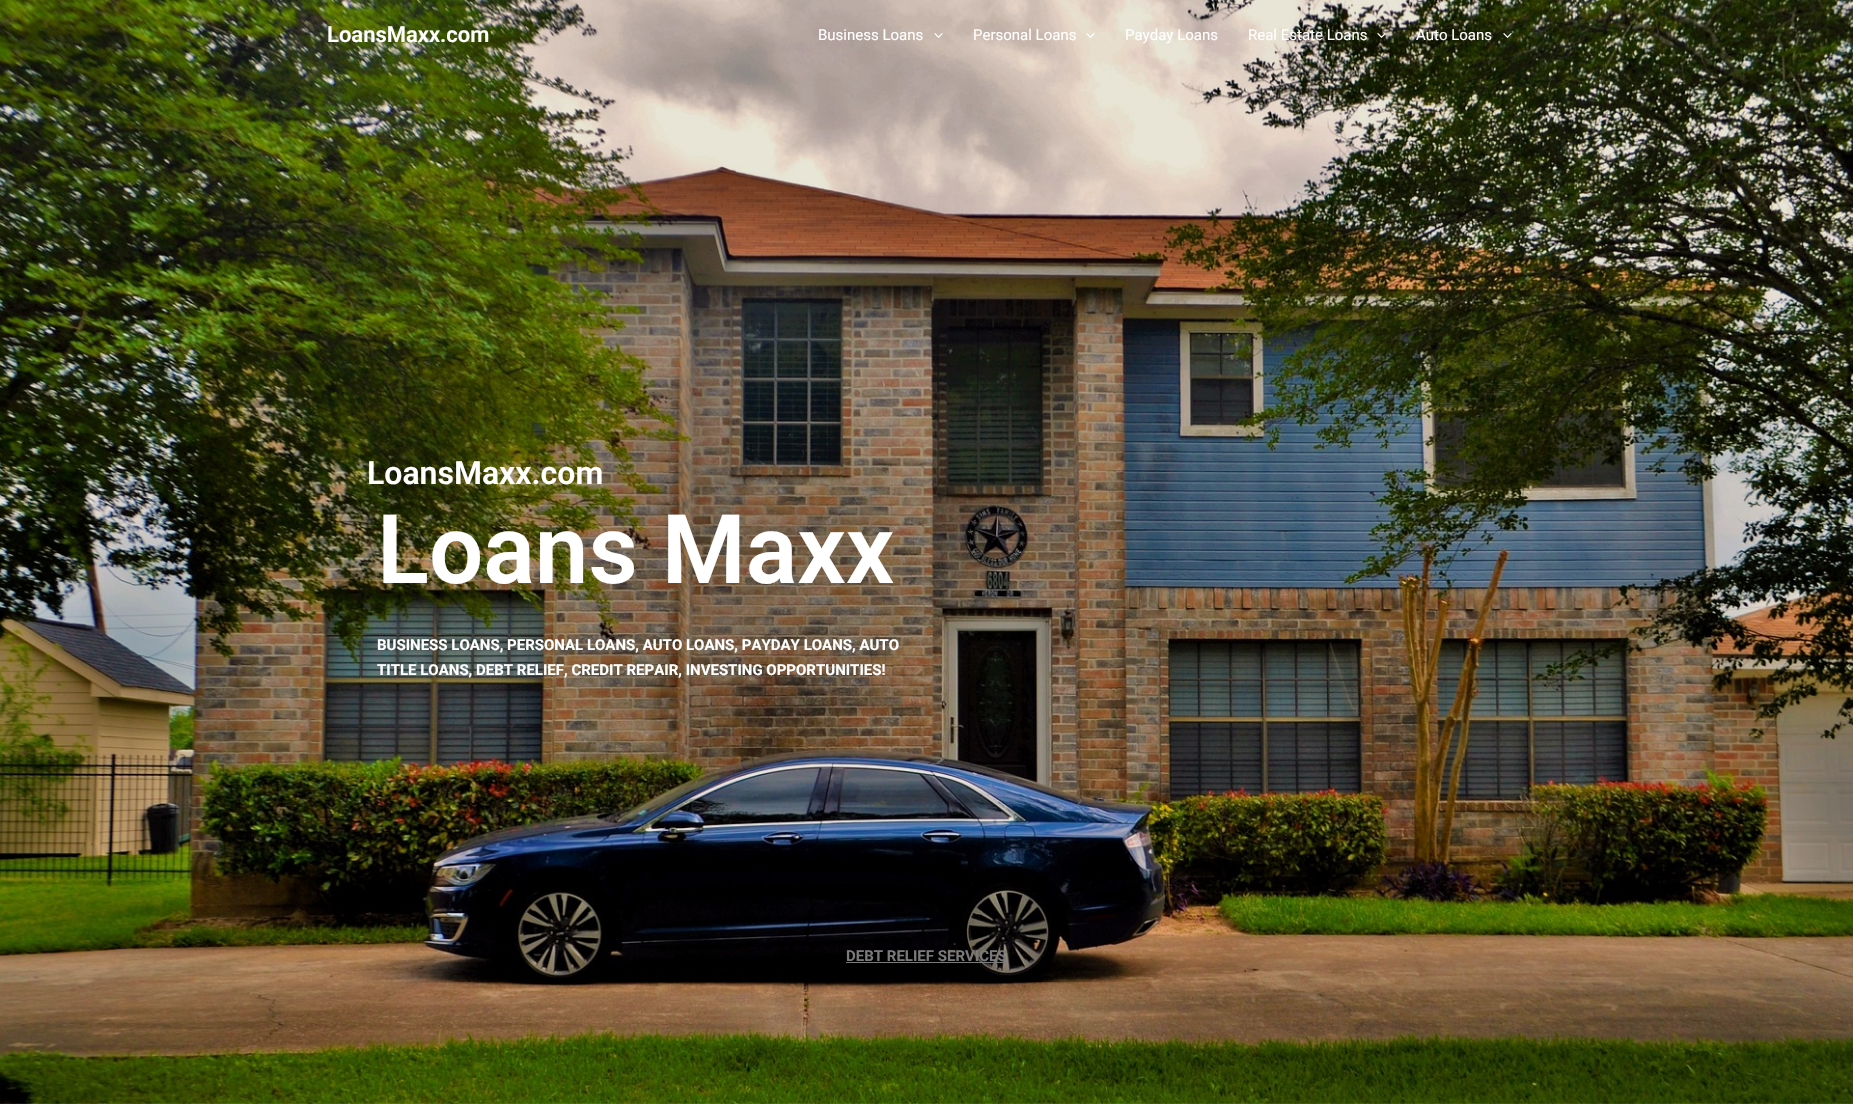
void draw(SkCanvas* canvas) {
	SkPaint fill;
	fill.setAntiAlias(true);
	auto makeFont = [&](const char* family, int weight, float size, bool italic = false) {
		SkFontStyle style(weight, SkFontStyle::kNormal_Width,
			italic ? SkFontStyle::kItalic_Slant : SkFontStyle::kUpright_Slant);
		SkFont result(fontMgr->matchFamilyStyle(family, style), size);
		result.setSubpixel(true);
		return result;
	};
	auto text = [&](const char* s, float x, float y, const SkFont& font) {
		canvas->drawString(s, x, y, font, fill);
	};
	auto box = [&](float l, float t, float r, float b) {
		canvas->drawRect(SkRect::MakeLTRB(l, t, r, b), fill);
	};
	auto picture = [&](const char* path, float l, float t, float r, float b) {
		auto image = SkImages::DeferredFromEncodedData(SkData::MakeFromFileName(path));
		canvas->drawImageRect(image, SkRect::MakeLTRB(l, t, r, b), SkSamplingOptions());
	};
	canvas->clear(0xFFFFFFFF);
	picture("image4.png", 0, 0, 1853, 1104);
	picture("image0.png", 934, 33, 943, 38);
	picture("image1.png", 1086, 33, 1095, 38);
	picture("image2.png", 1377, 33, 1386, 38);
	picture("image3.png", 1503, 33, 1512, 38);
	fill.setColor(0xFF7A7A7A);
	box(846, 962, 1007, 963);
	auto font1 = makeFont("Roboto", 600, 22);
	fill.setColor(0xFFFFFFFF);
	text("LoansMaxx.com", 327, 42, font1);
	auto font2 = makeFont("Roboto", 400, 15);
	text("Business Loans", 818, 40, font2);
	text("Personal Loans", 973, 40, font2);
	text("Payday Loans", 1125, 40, font2);
	text("Real Estate Loans", 1248, 40, font2);
	text("Auto Loans", 1416, 40, font2);
	auto font3 = makeFont("Roboto", 600, 32);
	text("LoansMaxx.com", 367, 484, font3);
	auto font4 = makeFont("Roboto", 600, 96);
	text("Loans Maxx", 377, 583, font4);
	auto font5 = makeFont("Roboto", 700, 15);
	text("BUSINESS LOANS, PERSONAL LOANS, AUTO LOANS, PAYDAY LOANS, AUTO", 377, 650, font5);
	text("TITLE LOANS, DEBT RELIEF, CREDIT REPAIR, INVESTING OPPORTUNITIES!", 377, 675, font5);
	fill.setColor(0xFF7A7A7A);
	text("DEBT RELIEF SERVICES", 846, 961, font5);
}
